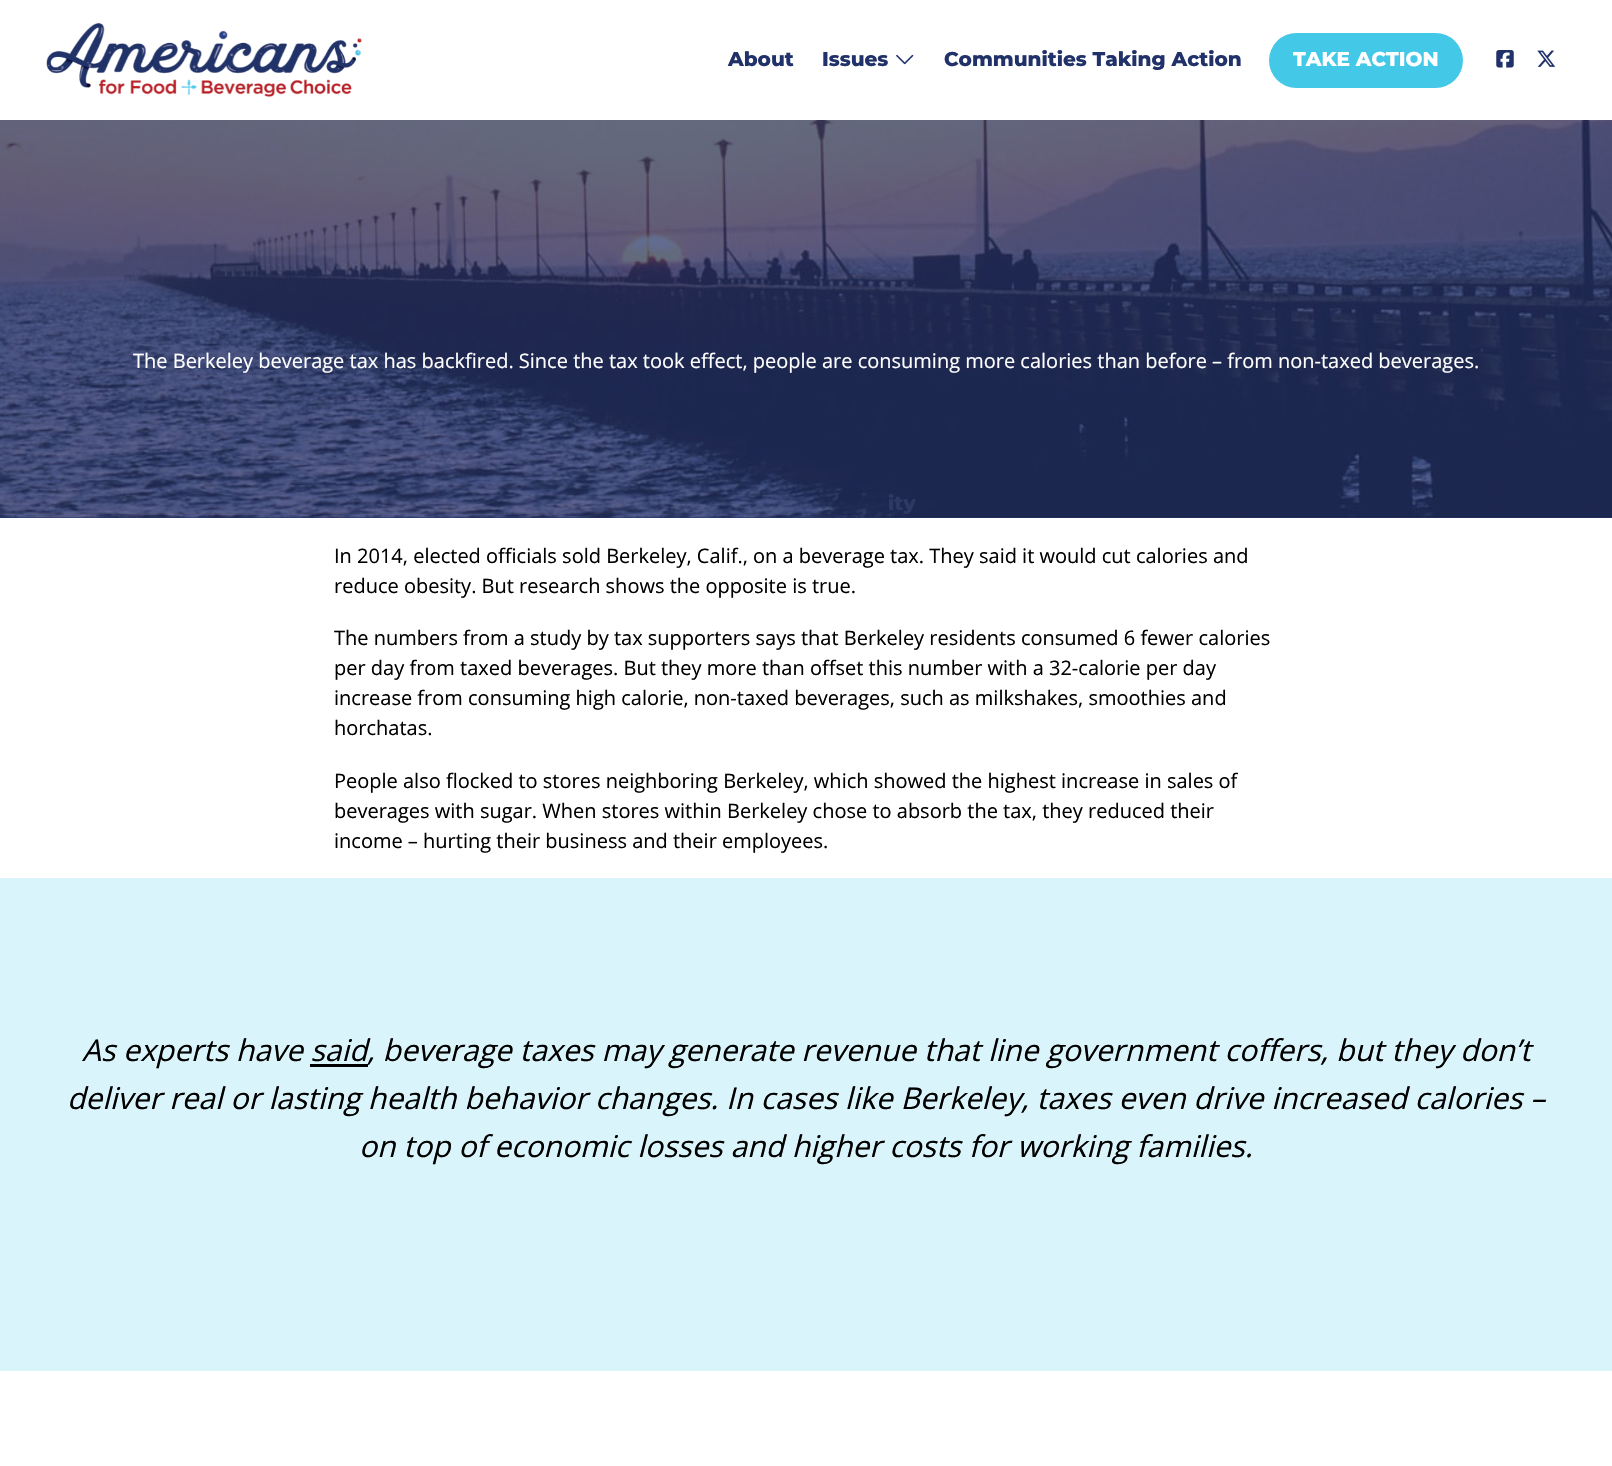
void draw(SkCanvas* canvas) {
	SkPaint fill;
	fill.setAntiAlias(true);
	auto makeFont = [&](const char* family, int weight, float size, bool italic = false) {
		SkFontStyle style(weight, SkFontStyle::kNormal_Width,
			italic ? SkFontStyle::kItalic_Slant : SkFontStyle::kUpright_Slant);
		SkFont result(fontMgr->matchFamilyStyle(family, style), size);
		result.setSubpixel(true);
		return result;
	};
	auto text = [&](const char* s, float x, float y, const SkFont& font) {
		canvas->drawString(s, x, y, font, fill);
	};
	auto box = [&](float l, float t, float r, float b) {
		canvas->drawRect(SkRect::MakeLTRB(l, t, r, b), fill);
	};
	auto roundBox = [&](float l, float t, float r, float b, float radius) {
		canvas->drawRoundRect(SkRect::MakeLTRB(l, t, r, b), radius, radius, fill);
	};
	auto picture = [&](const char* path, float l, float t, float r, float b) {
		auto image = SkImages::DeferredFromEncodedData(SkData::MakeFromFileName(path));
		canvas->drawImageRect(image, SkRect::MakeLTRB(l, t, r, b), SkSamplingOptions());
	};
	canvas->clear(0xFFFFFFFF);
	picture("image0.png", 46, 22, 362, 97);
	picture("image1.png", 896, 54, 914, 65);
	fill.setColor(0xFF44C8E8);
	roundBox(1269, 33, 1463, 88, 27.5f);
	picture("image2.png", 1496, 50, 1514, 68);
	picture("image3.png", 1537, 50, 1556, 67);
	fill.setColor(0xFF213169);
	box(0, 517, 1612, 518);
	picture("image4.png", 0, 120, 1612, 518);
	fill.setColor(0xFFD9F4FA);
	box(0, 878, 1612, 1371);
	fill.setColor(0xFF000000);
	box(310, 1064, 368, 1067);
	auto font1 = makeFont("Montserrat", 100, 20);
	fill.setColor(0xFF213169);
	text("About", 728, 66, font1);
	text("Issues", 822, 66, font1);
	fill.setColor(0xFF2D3964);
	text("ity", 888, 510, font1);
	fill.setColor(0xFF213169);
	text("Communities Taking Action", 944, 66, font1);
	fill.setColor(0xFFFFFFFF);
	text("TAKE ACTION", 1293, 66, font1);
	auto font2 = makeFont("Open Sans", 400, 20);
	text("The Berkeley beverage tax has backfired. Since the tax took effect, people are consuming more calories than before – from non-taxed beverages.", 133, 368, font2);
	fill.setColor(0xFF000000);
	text("In 2014, elected officials sold Berkeley, Calif., on a beverage tax. They said it would cut calories and", 334, 563, font2);
	text("reduce obesity. But research shows the opposite is true.", 334, 593, font2);
	text("The numbers from a study by tax supporters says that Berkeley residents consumed 6 fewer calories", 334, 645, font2);
	text("per day from taxed beverages. But they more than offset this number with a 32-calorie per day", 334, 675, font2);
	text("increase from consuming high calorie, non-taxed beverages, such as milkshakes, smoothies and", 334, 705, font2);
	text("horchatas.", 334, 735, font2);
	text("People also flocked to stores neighboring Berkeley, which showed the highest increase in sales of", 334, 788, font2);
	text("beverages with sugar. When stores within Berkeley chose to absorb the tax, they reduced their", 334, 818, font2);
	text("income – hurting their business and their employees.", 334, 848, font2);
	auto font3 = makeFont("Open Sans", 400, 30, true);
	text("As experts have said", 82, 1061, font3);
	text(", beverage taxes may generate revenue that line government coffers, but they don’t", 367, 1061, font3);
	text("deliver real or lasting health behavior changes. In cases like Berkeley, taxes even drive increased calories –", 67, 1109, font3);
	text("on top of economic losses and higher costs for working families.", 359, 1157, font3);
}
